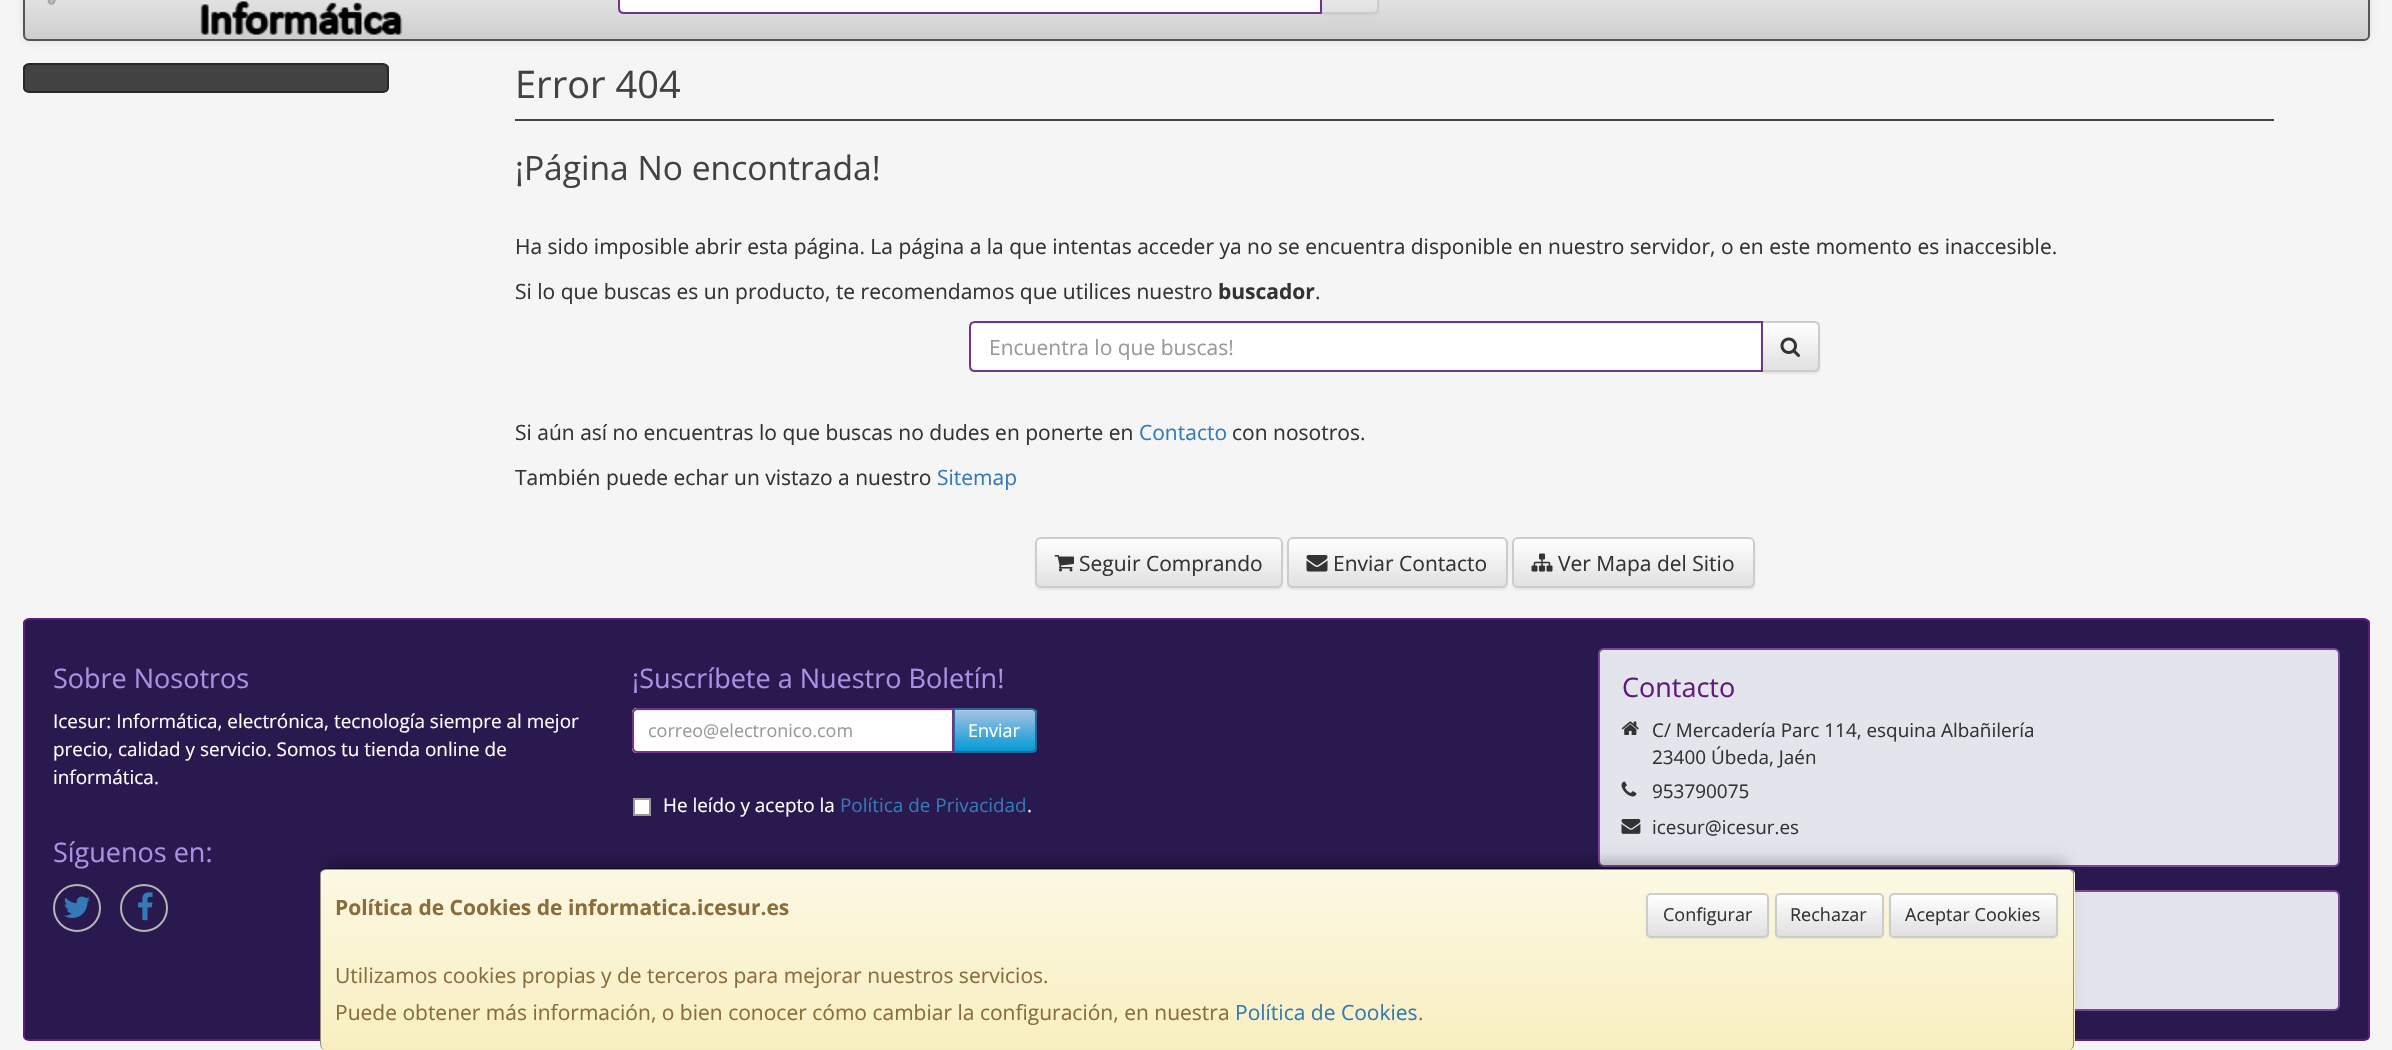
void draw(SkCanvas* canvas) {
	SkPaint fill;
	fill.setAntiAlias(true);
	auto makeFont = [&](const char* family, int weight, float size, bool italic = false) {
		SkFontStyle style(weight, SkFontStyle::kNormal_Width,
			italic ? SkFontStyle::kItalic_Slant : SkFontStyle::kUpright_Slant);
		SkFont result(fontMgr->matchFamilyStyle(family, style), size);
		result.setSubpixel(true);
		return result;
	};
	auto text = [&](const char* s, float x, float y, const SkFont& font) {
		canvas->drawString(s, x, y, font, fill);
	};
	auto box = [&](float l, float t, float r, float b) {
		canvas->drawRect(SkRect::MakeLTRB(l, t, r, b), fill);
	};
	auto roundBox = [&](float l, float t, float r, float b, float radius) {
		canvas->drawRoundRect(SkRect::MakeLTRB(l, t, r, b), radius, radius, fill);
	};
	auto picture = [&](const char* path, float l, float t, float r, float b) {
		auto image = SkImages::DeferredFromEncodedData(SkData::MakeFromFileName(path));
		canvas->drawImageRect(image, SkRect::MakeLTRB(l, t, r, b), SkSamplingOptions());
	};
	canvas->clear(0xFFF5F5F5);
	fill.setColor(0x12000000);
	fill.setMaskFilter(SkMaskFilter::MakeBlur(kNormal_SkBlurStyle, 4));
	canvas->drawRoundRect(SkRect::MakeLTRB(23, -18, 2370, 42), 6, 6, fill);
	fill.setMaskFilter(nullptr);
	canvas->save();
	canvas->clipPath(SkPathBuilder().moveTo(29, -61).lineTo(2364, -61).cubicTo(2367.5f, -61, 2370, -58.5f, 2370, -55).lineTo(2370, 35).cubicTo(2370, 38.5f, 2367.5f, 41, 2364, 41).lineTo(29, 41).cubicTo(25.5f, 41, 23, 38.5f, 23, 35).lineTo(23, -55).cubicTo(23, -58.5f, 25.5f, -61, 29, -61).close().detach(), true);
	{
		const SkColor colors[] = {0xFFFFFFFF, 0xFFCECECE};
		const float stops[] = {0, 1};
		const SkPoint ends[] = {{1196, -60}, {1196, 39}};
		fill.setShader(SkGradientShader::MakeLinear(ends, colors, stops, 2, SkTileMode::kClamp));
		fill.setAlpha(255);
	}
	box(23, 0, 2370, 39);
	canvas->restore();
	fill.setStyle(SkPaint::kStroke_Style);
	fill.setStrokeWidth(2);
	fill.setShader(nullptr);
	fill.setColor(0xFF555555);
	canvas->drawRoundRect(SkRect::MakeLTRB(24, -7, 2369, 40), 5, 5, fill);
	picture("image0.png", 47, 0, 403, 35);
	fill.setStyle(SkPaint::kFill_Style);
	fill.setColor(0x12000000);
	fill.setMaskFilter(SkMaskFilter::MakeBlur(kNormal_SkBlurStyle, 1));
	canvas->drawRoundRect(SkRect::MakeLTRB(1320, -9, 1379, 15), 6, 6, fill);
	fill.setMaskFilter(nullptr);
	canvas->save();
	canvas->clipPath(SkPathBuilder().moveTo(1320, -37).lineTo(1373, -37).cubicTo(1376.5f, -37, 1379, -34.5f, 1379, -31).lineTo(1379, 8).cubicTo(1379, 11.5f, 1376.5f, 14, 1373, 14).lineTo(1320, 14).close().detach(), true);
	{
		const SkColor colors[] = {0xFFFFFFFF, 0xFFE0E0E0};
		const float stops[] = {0, 1};
		const SkPoint ends[] = {{1349, -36}, {1349, 12}};
		fill.setShader(SkGradientShader::MakeLinear(ends, colors, stops, 2, SkTileMode::kClamp));
		fill.setAlpha(255);
	}
	box(1322, 0, 1379, 12);
	canvas->restore();
	fill.setStyle(SkPaint::kStroke_Style);
	fill.setShader(nullptr);
	fill.setColor(0xFFCCCCCC);
	canvas->drawPath(SkPathBuilder().moveTo(1321, -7).lineTo(1373, -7).cubicTo(1376, -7, 1378, -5, 1378, -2).lineTo(1378, 8).cubicTo(1378, 11, 1376, 13, 1373, 13).lineTo(1321, 13).close().detach(), fill);
	fill.setStyle(SkPaint::kFill_Style);
	fill.setColor(0xFFFFFFFF);
	canvas->drawPath(SkPathBuilder().moveTo(624, -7).lineTo(1321, -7).lineTo(1321, 13).lineTo(624, 13).cubicTo(621, 13, 619, 11, 619, 8).lineTo(619, -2).cubicTo(619, -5, 621, -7, 624, -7).close().detach(), fill);
	fill.setStyle(SkPaint::kStroke_Style);
	fill.setColor(0xFF73338D);
	canvas->drawPath(SkPathBuilder().moveTo(624, -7).lineTo(1321, -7).lineTo(1321, 13).lineTo(624, 13).cubicTo(621, 13, 619, 11, 619, 8).lineTo(619, -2).cubicTo(619, -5, 621, -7, 624, -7).close().detach(), fill);
	canvas->save();
	canvas->clipPath(SkPathBuilder().moveTo(29, 63).lineTo(383, 63).cubicTo(386.5f, 63, 389, 65.5f, 389, 69).lineTo(389, 87).cubicTo(389, 90.5f, 386.5f, 93, 383, 93).lineTo(29, 93).cubicTo(25.5f, 93, 23, 90.5f, 23, 87).lineTo(23, 69).cubicTo(23, 65.5f, 25.5f, 63, 29, 63).close().detach(), true);
	fill.setStyle(SkPaint::kFill_Style);
	fill.setColor(0xFF424242);
	box(23, 65, 389, 92);
	canvas->restore();
	fill.setStyle(SkPaint::kStroke_Style);
	fill.setColor(0xFF282828);
	canvas->drawRoundRect(SkRect::MakeLTRB(24, 64, 388, 92), 5, 5, fill);
	fill.setStyle(SkPaint::kFill_Style);
	fill.setColor(0xFF424242);
	box(515, 119, 2274, 121);
	fill.setColor(0x12000000);
	fill.setMaskFilter(SkMaskFilter::MakeBlur(kNormal_SkBlurStyle, 1));
	canvas->drawRoundRect(SkRect::MakeLTRB(1761, 323, 1820, 374), 6, 6, fill);
	fill.setMaskFilter(nullptr);
	canvas->save();
	canvas->clipPath(SkPathBuilder().moveTo(1761, 321).lineTo(1814, 321).cubicTo(1817.5f, 321, 1820, 323.5f, 1820, 327).lineTo(1820, 366).cubicTo(1820, 369.5f, 1817.5f, 372, 1814, 372).lineTo(1761, 372).close().detach(), true);
	{
		const SkColor colors[] = {0xFFFFFFFF, 0xFFE0E0E0};
		const float stops[] = {0, 1};
		const SkPoint ends[] = {{1790, 323}, {1790, 371}};
		fill.setShader(SkGradientShader::MakeLinear(ends, colors, stops, 2, SkTileMode::kClamp));
		fill.setAlpha(255);
	}
	box(1763, 323, 1820, 371);
	canvas->restore();
	fill.setStyle(SkPaint::kStroke_Style);
	fill.setShader(nullptr);
	fill.setColor(0xFFCCCCCC);
	canvas->drawPath(SkPathBuilder().moveTo(1762, 322).lineTo(1814, 322).cubicTo(1817, 322, 1819, 324, 1819, 327).lineTo(1819, 366).cubicTo(1819, 369, 1817, 371, 1814, 371).lineTo(1762, 371).close().detach(), fill);
	fill.setStyle(SkPaint::kFill_Style);
	fill.setColor(0xFFFFFFFF);
	canvas->drawPath(SkPathBuilder().moveTo(975, 321).lineTo(1763, 321).lineTo(1763, 372).lineTo(975, 372).cubicTo(971.5f, 372, 969, 369.5f, 969, 366).lineTo(969, 327).cubicTo(969, 323.5f, 971.5f, 321, 975, 321).close().detach(), fill);
	fill.setColor(0xFFECECEC);
	canvas->drawPath(SkPathBuilder().moveTo(975, 324).lineTo(1761, 324).lineTo(1761, 323).lineTo(976, 323).cubicTo(974, 323, 973, 324, 972, 325).close().detach(), fill);
	fill.setStyle(SkPaint::kStroke_Style);
	fill.setColor(0xFF73338D);
	canvas->drawPath(SkPathBuilder().moveTo(975, 322).lineTo(1762, 322).lineTo(1762, 371).lineTo(975, 371).cubicTo(972, 371, 970, 369, 970, 366).lineTo(970, 327).cubicTo(970, 324, 972, 322, 975, 322).close().detach(), fill);
	picture("image1.png", 1780, 337, 1800, 357);
	fill.setStyle(SkPaint::kFill_Style);
	fill.setColor(0x12000000);
	fill.setMaskFilter(SkMaskFilter::MakeBlur(kNormal_SkBlurStyle, 1));
	canvas->drawRoundRect(SkRect::MakeLTRB(1035, 539, 1283, 590), 6, 6, fill);
	fill.setMaskFilter(nullptr);
	canvas->save();
	canvas->clipPath(SkPathBuilder().moveTo(1041, 537).lineTo(1277, 537).cubicTo(1280.5f, 537, 1283, 539.5f, 1283, 543).lineTo(1283, 582).cubicTo(1283, 585.5f, 1280.5f, 588, 1277, 588).lineTo(1041, 588).cubicTo(1037.5f, 588, 1035, 585.5f, 1035, 582).lineTo(1035, 543).cubicTo(1035, 539.5f, 1037.5f, 537, 1041, 537).close().detach(), true);
	{
		const SkColor colors[] = {0xFFFFFFFF, 0xFFE0E0E0};
		const float stops[] = {0, 1};
		const SkPoint ends[] = {{1159, 539}, {1159, 587}};
		fill.setShader(SkGradientShader::MakeLinear(ends, colors, stops, 2, SkTileMode::kClamp));
		fill.setAlpha(255);
	}
	box(1035, 539, 1283, 587);
	canvas->restore();
	fill.setStyle(SkPaint::kStroke_Style);
	fill.setShader(nullptr);
	fill.setColor(0xFFCCCCCC);
	canvas->drawRoundRect(SkRect::MakeLTRB(1036, 538, 1282, 587), 5, 5, fill);
	picture("image2.png", 1054, 555, 1074, 572);
	fill.setStyle(SkPaint::kFill_Style);
	fill.setColor(0x12000000);
	fill.setMaskFilter(SkMaskFilter::MakeBlur(kNormal_SkBlurStyle, 1));
	canvas->drawRoundRect(SkRect::MakeLTRB(1287, 539, 1508, 590), 6, 6, fill);
	fill.setMaskFilter(nullptr);
	canvas->save();
	canvas->clipPath(SkPathBuilder().moveTo(1293, 537).lineTo(1502, 537).cubicTo(1505.5f, 537, 1508, 539.5f, 1508, 543).lineTo(1508, 582).cubicTo(1508, 585.5f, 1505.5f, 588, 1502, 588).lineTo(1293, 588).cubicTo(1289.5f, 588, 1287, 585.5f, 1287, 582).lineTo(1287, 543).cubicTo(1287, 539.5f, 1289.5f, 537, 1293, 537).close().detach(), true);
	{
		const SkColor colors[] = {0xFFFFFFFF, 0xFFE0E0E0};
		const float stops[] = {0, 1};
		const SkPoint ends[] = {{1397, 539}, {1397, 587}};
		fill.setShader(SkGradientShader::MakeLinear(ends, colors, stops, 2, SkTileMode::kClamp));
		fill.setAlpha(255);
	}
	box(1287, 539, 1508, 587);
	canvas->restore();
	fill.setStyle(SkPaint::kStroke_Style);
	fill.setShader(nullptr);
	fill.setColor(0xFFCCCCCC);
	canvas->drawRoundRect(SkRect::MakeLTRB(1288, 538, 1507, 587), 5, 5, fill);
	picture("image3.png", 1306, 555, 1328, 572);
	fill.setStyle(SkPaint::kFill_Style);
	fill.setColor(0x12000000);
	fill.setMaskFilter(SkMaskFilter::MakeBlur(kNormal_SkBlurStyle, 1));
	canvas->drawRoundRect(SkRect::MakeLTRB(1512, 539, 1755, 590), 6, 6, fill);
	fill.setMaskFilter(nullptr);
	canvas->save();
	canvas->clipPath(SkPathBuilder().moveTo(1518, 537).lineTo(1749, 537).cubicTo(1752.5f, 537, 1755, 539.5f, 1755, 543).lineTo(1755, 582).cubicTo(1755, 585.5f, 1752.5f, 588, 1749, 588).lineTo(1518, 588).cubicTo(1514.5f, 588, 1512, 585.5f, 1512, 582).lineTo(1512, 543).cubicTo(1512, 539.5f, 1514.5f, 537, 1518, 537).close().detach(), true);
	{
		const SkColor colors[] = {0xFFFFFFFF, 0xFFE0E0E0};
		const float stops[] = {0, 1};
		const SkPoint ends[] = {{1634, 539}, {1634, 587}};
		fill.setShader(SkGradientShader::MakeLinear(ends, colors, stops, 2, SkTileMode::kClamp));
		fill.setAlpha(255);
	}
	box(1512, 539, 1755, 587);
	canvas->restore();
	fill.setStyle(SkPaint::kStroke_Style);
	fill.setShader(nullptr);
	fill.setColor(0xFFCCCCCC);
	canvas->drawRoundRect(SkRect::MakeLTRB(1513, 538, 1754, 587), 5, 5, fill);
	picture("image4.png", 1531, 553, 1553, 572);
	canvas->save();
	canvas->clipPath(SkPathBuilder().moveTo(29, 618).lineTo(2364, 618).cubicTo(2367.5f, 618, 2370, 620.5f, 2370, 624).lineTo(2370, 1035).cubicTo(2370, 1038.5f, 2367.5f, 1041, 2364, 1041).lineTo(29, 1041).cubicTo(25.5f, 1041, 23, 1038.5f, 23, 1035).lineTo(23, 624).cubicTo(23, 620.5f, 25.5f, 618, 29, 618).close().detach(), true);
	fill.setStyle(SkPaint::kFill_Style);
	fill.setColor(0xFF2A194F);
	box(23, 620, 2370, 1040);
	canvas->restore();
	fill.setStyle(SkPaint::kStroke_Style);
	fill.setColor(0xFF61197F);
	canvas->drawRoundRect(SkRect::MakeLTRB(24, 619, 2369, 1040), 5, 5, fill);
	fill.setColor(0xFFB5B5B5);
	canvas->drawCircle(77, 908, 23, fill);
	picture("image5.png", 64, 896, 90, 918);
	canvas->drawCircle(144, 908, 23, fill);
	picture("image6.png", 138, 892, 153, 921);
	canvas->save();
	canvas->clipPath(SkPathBuilder().moveTo(953, 708).lineTo(1032, 708).cubicTo(1035, 708, 1037, 710, 1037, 713).lineTo(1037, 748).cubicTo(1037, 751, 1035, 753, 1032, 753).lineTo(953, 753).close().detach(), true);
	fill.setStyle(SkPaint::kFill_Style);
	{
		const SkColor colors[] = {0xFFA5C2E3, 0xFF0098D4};
		const float stops[] = {0, 1};
		const SkPoint ends[] = {{995, 710}, {995, 752}};
		fill.setShader(SkGradientShader::MakeLinear(ends, colors, stops, 2, SkTileMode::kClamp));
		fill.setAlpha(255);
	}
	box(955, 710, 1037, 752);
	canvas->restore();
	fill.setShader(nullptr);
	fill.setColor(0x26FFFFFF);
	canvas->drawPath(SkPathBuilder().moveTo(954, 711).lineTo(1032, 711).cubicTo(1034, 711, 1035, 712, 1035, 714).lineTo(1035, 713).cubicTo(1035, 711, 1034, 710, 1032, 710).lineTo(954, 710).close().detach(), fill);
	fill.setStyle(SkPaint::kStroke_Style);
	fill.setColor(0xFF2B669A);
	canvas->drawPath(SkPathBuilder().moveTo(954, 709).lineTo(1032, 709).cubicTo(1034, 709, 1036, 711, 1036, 713).lineTo(1036, 748).cubicTo(1036, 750, 1034, 752, 1032, 752).lineTo(954, 752).close().detach(), fill);
	fill.setStyle(SkPaint::kFill_Style);
	fill.setColor(0xFFFFFFFF);
	canvas->drawPath(SkPathBuilder().moveTo(637, 708).lineTo(954, 708).lineTo(954, 753).lineTo(637, 753).cubicTo(634, 753, 632, 751, 632, 748).lineTo(632, 713).cubicTo(632, 710, 634, 708, 637, 708).close().detach(), fill);
	fill.setColor(0xFFECECEC);
	canvas->drawPath(SkPathBuilder().moveTo(636, 711).lineTo(952, 711).lineTo(952, 752).lineTo(953, 752).lineTo(953, 710).lineTo(636, 710).cubicTo(634, 710, 633, 712, 633, 714).cubicTo(633, 712, 634, 711, 636, 711).close().detach(), fill);
	fill.setStyle(SkPaint::kStroke_Style);
	fill.setColor(0xFF73338D);
	canvas->drawPath(SkPathBuilder().moveTo(637, 709).lineTo(953, 709).lineTo(953, 752).lineTo(637, 752).cubicTo(635, 752, 633, 750, 633, 748).lineTo(633, 713).cubicTo(633, 711, 635, 709, 637, 709).close().detach(), fill);
	fill.setStyle(SkPaint::kFill_Style);
	fill.setColor(0xFFFFFFFF);
	canvas->drawRect(SkRect::MakeLTRB(634, 799, 650, 815), fill);
	fill.setStyle(SkPaint::kStroke_Style);
	fill.setColor(0xFF999999);
	canvas->drawRect(SkRect::MakeLTRB(634, 799, 650, 815), fill);
	fill.setStyle(SkPaint::kFill_Style);
	fill.setColor(0xFFE2E5EC);
	canvas->drawRoundRect(SkRect::MakeLTRB(1599, 649, 2339, 866), 5, 5, fill);
	fill.setStyle(SkPaint::kStroke_Style);
	fill.setColor(0xFF7F4697);
	canvas->drawRoundRect(SkRect::MakeLTRB(1599, 649, 2339, 866), 5, 5, fill);
	picture("image7.png", 1621, 721, 1639, 735);
	picture("image8.png", 1621, 781, 1637, 797);
	picture("image9.png", 1621, 819, 1641, 834);
	fill.setStyle(SkPaint::kFill_Style);
	fill.setColor(0xFFE2E5EC);
	canvas->drawRoundRect(SkRect::MakeLTRB(1599, 891, 2339, 1010), 5, 5, fill);
	fill.setStyle(SkPaint::kStroke_Style);
	fill.setColor(0xFF7F4697);
	canvas->drawRoundRect(SkRect::MakeLTRB(1599, 891, 2339, 1010), 5, 5, fill);
	fill.setStyle(SkPaint::kFill_Style);
	fill.setColor(0x40000000);
	fill.setMaskFilter(SkMaskFilter::MakeBlur(kNormal_SkBlurStyle, 7.5f));
	canvas->drawRect(SkRect::MakeLTRB(327, 861, 2067, 1028), fill);
	fill.setMaskFilter(nullptr);
	fill.setColor(0xFFFCF8E3);
	roundBox(320, 869, 2075, 1050, 6);
	canvas->save();
	canvas->clipPath(SkPathBuilder().moveTo(326, 869).lineTo(2069, 869).cubicTo(2072.5f, 869, 2075, 871.5f, 2075, 875).lineTo(2075, 1044).cubicTo(2075, 1047.5f, 2072.5f, 1050, 2069, 1050).lineTo(326, 1050).cubicTo(322.5f, 1050, 320, 1047.5f, 320, 1044).lineTo(320, 875).cubicTo(320, 871.5f, 322.5f, 869, 326, 869).close().detach(), true);
	{
		const SkColor colors[] = {0xFFFCF8E3, 0xFFF8EFC0};
		const float stops[] = {0, 1};
		const SkPoint ends[] = {{1197, 870}, {1197, 1050}};
		fill.setShader(SkGradientShader::MakeLinear(ends, colors, stops, 2, SkTileMode::kClamp));
		fill.setAlpha(255);
	}
	canvas->drawPath(SkPathBuilder().moveTo(320, 870).lineTo(2075, 870).lineTo(2075, 1044).cubicTo(2075, 1047.5f, 2072.5f, 1050, 2069, 1050).lineTo(326, 1050).cubicTo(322.5f, 1050, 320, 1047.5f, 320, 1044).close().detach(), fill);
	canvas->restore();
	fill.setShader(nullptr);
	fill.setColor(0x66000000);
	canvas->drawPath(SkPathBuilder(SkPathFillType::kEvenOdd).moveTo(326, 868).lineTo(2068, 868).cubicTo(2072, 868, 2074, 871, 2074, 874).lineTo(2074, 1044).cubicTo(2074, 1047, 2072, 1050, 2068, 1050).lineTo(326, 1050).cubicTo(322, 1050, 320, 1047, 320, 1044).lineTo(320, 874).cubicTo(320, 871, 322, 868, 326, 868).close().moveTo(326, 870).lineTo(2068, 870).cubicTo(2071, 870, 2073, 872, 2073, 874).lineTo(2073, 1044).cubicTo(2073, 1047, 2071, 1050, 2068, 1050).lineTo(326, 1050).cubicTo(323, 1050, 321, 1047, 321, 1044).lineTo(321, 874).cubicTo(321, 872, 323, 870, 326, 870).close().detach(), fill);
	fill.setColor(0x12000000);
	fill.setMaskFilter(SkMaskFilter::MakeBlur(kNormal_SkBlurStyle, 1));
	canvas->drawRoundRect(SkRect::MakeLTRB(1646, 894, 1769, 939), 5, 5, fill);
	fill.setMaskFilter(nullptr);
	canvas->save();
	canvas->clipPath(SkPathBuilder().moveTo(1651, 893).lineTo(1764, 893).cubicTo(1767, 893, 1769, 895, 1769, 898).lineTo(1769, 933).cubicTo(1769, 936, 1767, 938, 1764, 938).lineTo(1651, 938).cubicTo(1648, 938, 1646, 936, 1646, 933).lineTo(1646, 898).cubicTo(1646, 895, 1648, 893, 1651, 893).close().detach(), true);
	{
		const SkColor colors[] = {0xFFFFFFFF, 0xFFE0E0E0};
		const float stops[] = {0, 1};
		const SkPoint ends[] = {{1707, 894}, {1707, 936}};
		fill.setShader(SkGradientShader::MakeLinear(ends, colors, stops, 2, SkTileMode::kClamp));
		fill.setAlpha(255);
	}
	box(1646, 894, 1769, 936);
	canvas->restore();
	fill.setShader(nullptr);
	fill.setColor(0xFFFFFFFF);
	canvas->drawPath(SkPathBuilder().moveTo(1650, 896).lineTo(1764, 896).lineTo(1767, 897).lineTo(1767, 898).cubicTo(1767, 896, 1766, 894, 1764, 894).lineTo(1669, 894).cubicTo(1668, 894, 1647, 889, 1647, 898).cubicTo(1647, 897, 1648, 896, 1650, 896).close().detach(), fill);
	fill.setStyle(SkPaint::kStroke_Style);
	fill.setColor(0xFFCCCCCC);
	canvas->drawRoundRect(SkRect::MakeLTRB(1647, 894, 1768, 937), 4, 4, fill);
	fill.setStyle(SkPaint::kFill_Style);
	fill.setColor(0x12000000);
	fill.setMaskFilter(SkMaskFilter::MakeBlur(kNormal_SkBlurStyle, 1));
	canvas->drawRoundRect(SkRect::MakeLTRB(1775, 894, 1884, 939), 5, 5, fill);
	fill.setMaskFilter(nullptr);
	canvas->save();
	canvas->clipPath(SkPathBuilder().moveTo(1780, 893).lineTo(1879, 893).cubicTo(1882, 893, 1884, 895, 1884, 898).lineTo(1884, 933).cubicTo(1884, 936, 1882, 938, 1879, 938).lineTo(1780, 938).cubicTo(1777, 938, 1775, 936, 1775, 933).lineTo(1775, 898).cubicTo(1775, 895, 1777, 893, 1780, 893).close().detach(), true);
	{
		const SkColor colors[] = {0xFFFFFFFF, 0xFFE0E0E0};
		const float stops[] = {0, 1};
		const SkPoint ends[] = {{1829, 894}, {1829, 936}};
		fill.setShader(SkGradientShader::MakeLinear(ends, colors, stops, 2, SkTileMode::kClamp));
		fill.setAlpha(255);
	}
	box(1775, 894, 1884, 936);
	canvas->restore();
	fill.setShader(nullptr);
	fill.setColor(0x26FFFFFF);
	canvas->drawPath(SkPathBuilder().moveTo(1779, 896).lineTo(1863, 896).cubicTo(1885, 896, 1882, 891, 1882, 910).lineTo(1882, 935).cubicTo(1883, 935, 1883, 934, 1883, 933).lineTo(1883, 897).cubicTo(1883, 895, 1882, 894, 1880, 894).lineTo(1779, 894).cubicTo(1777, 894, 1776, 895, 1776, 897).lineTo(1776, 898).cubicTo(1776, 897, 1777, 896, 1779, 896).close().detach(), fill);
	fill.setStyle(SkPaint::kStroke_Style);
	fill.setColor(0xFFCCCCCC);
	canvas->drawRoundRect(SkRect::MakeLTRB(1776, 894, 1883, 937), 4, 4, fill);
	fill.setStyle(SkPaint::kFill_Style);
	fill.setColor(0x12000000);
	fill.setMaskFilter(SkMaskFilter::MakeBlur(kNormal_SkBlurStyle, 1));
	canvas->drawRoundRect(SkRect::MakeLTRB(1889, 894, 2058, 939), 5, 5, fill);
	fill.setMaskFilter(nullptr);
	canvas->save();
	canvas->clipPath(SkPathBuilder().moveTo(1894, 893).lineTo(2053, 893).cubicTo(2056, 893, 2058, 895, 2058, 898).lineTo(2058, 933).cubicTo(2058, 936, 2056, 938, 2053, 938).lineTo(1894, 938).cubicTo(1891, 938, 1889, 936, 1889, 933).lineTo(1889, 898).cubicTo(1889, 895, 1891, 893, 1894, 893).close().detach(), true);
	{
		const SkColor colors[] = {0xFFFFFFFF, 0xFFE0E0E0};
		const float stops[] = {0, 1};
		const SkPoint ends[] = {{1973, 894}, {1973, 936}};
		fill.setShader(SkGradientShader::MakeLinear(ends, colors, stops, 2, SkTileMode::kClamp));
		fill.setAlpha(255);
	}
	box(1889, 894, 2058, 936);
	canvas->restore();
	fill.setShader(nullptr);
	fill.setColor(0x26FFFFFF);
	canvas->drawPath(SkPathBuilder().moveTo(1893, 896).lineTo(2054, 896).cubicTo(2055, 896, 2056, 897, 2056, 898).lineTo(2056, 935).cubicTo(2057, 935, 2057, 934, 2057, 933).lineTo(2057, 897).cubicTo(2057, 895, 2056, 894, 2054, 894).lineTo(1893, 894).cubicTo(1891, 894, 1890, 895, 1890, 897).lineTo(1890, 898).cubicTo(1890, 897, 1891, 896, 1893, 896).close().detach(), fill);
	fill.setStyle(SkPaint::kStroke_Style);
	fill.setColor(0xFFCCCCCC);
	canvas->drawRoundRect(SkRect::MakeLTRB(1890, 894, 2057, 937), 4, 4, fill);
	auto font1 = makeFont("Open Sans", 400, 38);
	fill.setStyle(SkPaint::kFill_Style);
	fill.setColor(0xFF424242);
	text("Error 404", 515, 98, font1);
	auto font2 = makeFont("Open Sans", 400, 33.6f);
	text("¡Página No encontrada!", 515, 180, font2);
	auto font3 = makeFont("Open Sans", 400, 21);
	fill.setColor(0xFF333333);
	text("Ha sido imposible abrir esta página. La página a la que intentas acceder ya no se encuentra disponible en nuestro servidor, o en este momento es inaccesible.", 515, 254, font3);
	text("Si lo que buscas es un producto, te recomendamos que utilices nuestro", 515, 299, font3);
	auto font4 = makeFont("Open Sans", 700, 21);
	text("buscador", 1218, 299, font4);
	text(".", 1315, 299, font3);
	fill.setColor(0xFF999999);
	text("Encuentra lo que buscas!", 989, 355, font3);
	fill.setColor(0xFF333333);
	text("Si aún así no encuentras lo que buscas no dudes en ponerte en", 515, 440, font3);
	fill.setColor(0xFF337AB7);
	text("Contacto", 1139, 440, font3);
	fill.setColor(0xFF333333);
	text("con nosotros.", 1232, 440, font3);
	text("También puede echar un vistazo a nuestro", 515, 485, font3);
	fill.setColor(0xFF337AB7);
	text("Sitemap", 937, 485, font3);
	fill.setColor(0xFF333333);
	text("Seguir Comprando", 1079, 571, font3);
	text("Enviar Contacto", 1333, 571, font3);
	text("Ver Mapa del Sitio", 1558, 571, font3);
	auto font5 = makeFont("Open Sans", 400, 27);
	fill.setColor(0xFFAA91E4);
	text("Sobre Nosotros", 53, 688, font5);
	auto font6 = makeFont("Open Sans", 400, 18.9f);
	fill.setColor(0xFFFFFFFF);
	text("Icesur: Informática, electrónica, tecnología siempre al mejor", 53, 728, font6);
	text("precio, calidad y servicio. Somos tu tienda online de", 53, 756, font6);
	text("informática.", 53, 784, font6);
	fill.setColor(0xFFAA91E4);
	text("Síguenos en:", 53, 862, font5);
	text("¡Suscríbete a Nuestro Boletín!", 632, 688, font5);
	auto font7 = makeFont("Open Sans", 400, 18);
	fill.setColor(0xFF999999);
	text("correo@electronico.com", 648, 737, font7);
	fill.setColor(0xFFFFFFFF);
	text("Enviar", 968, 737, font7);
	text("He leído y acepto la", 663, 812, font6);
	fill.setColor(0xFF337AB7);
	text("Política de Privacidad", 840, 812, font6);
	fill.setColor(0xFFFFFFFF);
	text(".", 1027, 812, font6);
	fill.setColor(0xFF61197F);
	text("Contacto", 1622, 697, font5);
	fill.setColor(0xFF333333);
	text("C/ Mercadería Parc 114, esquina Albañilería", 1652, 737, font6);
	text("23400 Úbeda, Jaén", 1652, 764, font6);
	text("953790075", 1652, 798, font6);
	text("icesur@icesur.es", 1652, 834, font6);
	fill.setColor(0xFF8A6D3B);
	text("Política de Cookies de informatica.icesur.es", 335, 915, font4);
	fill.setColor(0xFF333333);
	text("Configurar", 1663, 921, font7);
	text("Rechazar", 1790, 921, font7);
	text("Aceptar Cookies", 1905, 921, font7);
	fill.setColor(0xFF8A6D3B);
	text("Utilizamos cookies propias y de terceros para mejorar nuestros servicios.", 335, 983, font3);
	text("Puede obtener más información, o bien conocer cómo cambiar la configuración, en nuestra", 335, 1020, font3);
	fill.setColor(0xFF337AB7);
	text("Política de Cookies", 1235, 1020, font3);
	fill.setColor(0xFF8A6D3B);
	text(".", 1418, 1020, font3);
}
